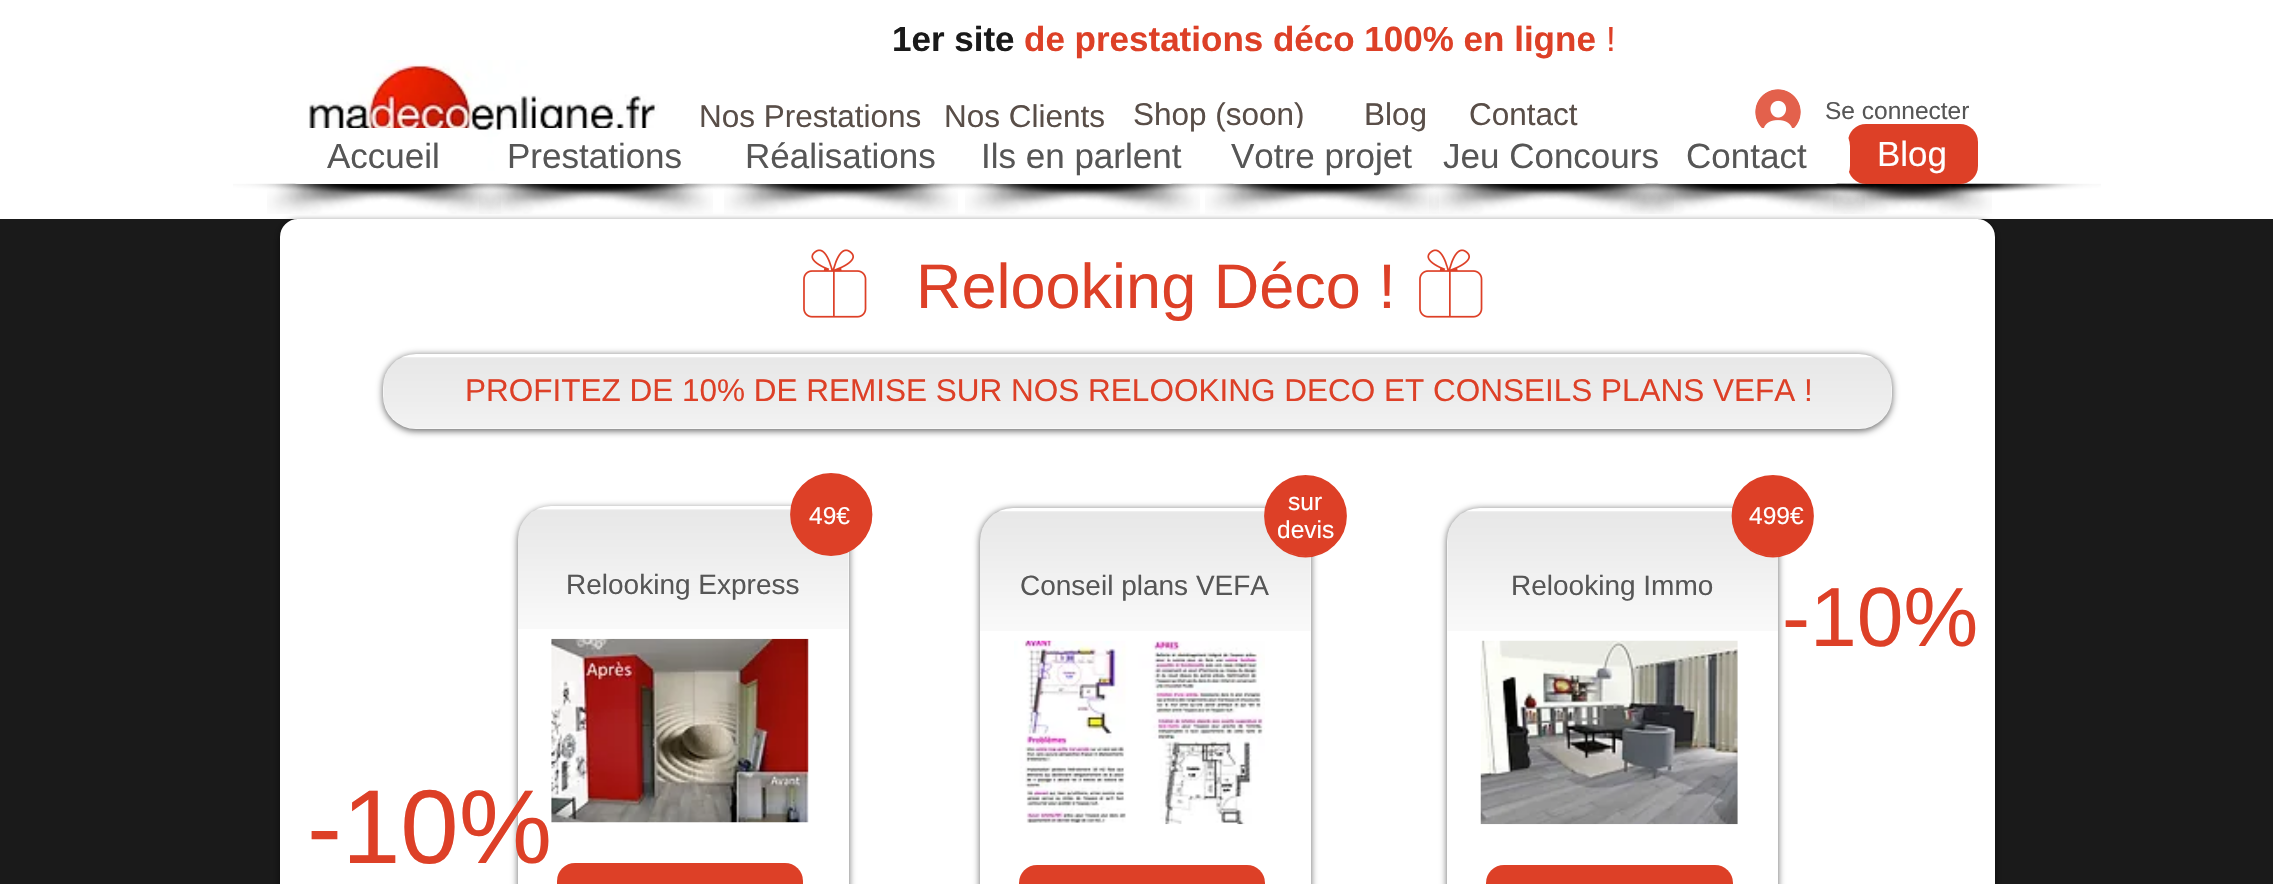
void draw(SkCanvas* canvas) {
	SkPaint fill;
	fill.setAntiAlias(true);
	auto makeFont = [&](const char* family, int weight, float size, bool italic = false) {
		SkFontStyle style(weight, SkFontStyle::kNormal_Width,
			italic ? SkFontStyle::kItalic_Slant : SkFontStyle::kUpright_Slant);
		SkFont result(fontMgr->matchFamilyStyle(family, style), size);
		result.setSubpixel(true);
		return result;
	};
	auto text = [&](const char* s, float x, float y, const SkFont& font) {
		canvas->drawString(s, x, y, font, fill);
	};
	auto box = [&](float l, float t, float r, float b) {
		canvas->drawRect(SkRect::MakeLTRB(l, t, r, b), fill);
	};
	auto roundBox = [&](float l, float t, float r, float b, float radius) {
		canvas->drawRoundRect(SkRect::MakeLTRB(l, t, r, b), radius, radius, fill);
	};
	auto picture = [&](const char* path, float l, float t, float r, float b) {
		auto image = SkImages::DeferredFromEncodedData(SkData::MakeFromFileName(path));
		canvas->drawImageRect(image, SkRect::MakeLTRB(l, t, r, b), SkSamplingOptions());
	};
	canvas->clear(0xFF1A1A1A);
	fill.setColor(0xFFFFFFFF);
	box(0, 0, 2273, 219);
	fill.setColor(0x99000000);
	fill.setMaskFilter(SkMaskFilter::MakeBlur(kNormal_SkBlurStyle, 3.5f));
	canvas->drawRoundRect(SkRect::MakeLTRB(280, 221, 1995, 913), 18, 18, fill);
	fill.setMaskFilter(nullptr);
	picture("image1.png", 267, 183, 535, 214);
	picture("image0.png", 233, 183, 501, 214);
	picture("image24.png", 309, 60, 659, 171);
	fill.setColor(0xFFFFFFFF);
	roundBox(282, 128, 487, 184, 18);
	picture("image3.png", 479, 183, 747, 214);
	picture("image2.png", 464, 183, 713, 214);
	roundBox(494, 128, 698, 184, 18);
	picture("image5.png", 724, 183, 992, 214);
	picture("image4.png", 690, 183, 958, 214);
	roundBox(739, 128, 943, 184, 18);
	picture("image7.png", 965, 183, 1233, 214);
	picture("image6.png", 935, 183, 1200, 214);
	picture("image9.png", 1205, 183, 1473, 214);
	picture("image15.png", 1833, 183, 2101, 214);
	picture("image14.png", 1724, 183, 1992, 214);
	fill.setColor(0xFFDD4027);
	roundBox(1848, 124, 1978, 184, 18);
	picture("image13.png", 1630, 183, 1867, 214);
	picture("image12.png", 1596, 183, 1865, 214);
	fill.setColor(0xFFFFFFFF);
	roundBox(1645, 128, 1850, 184, 18);
	canvas->drawRoundRect(SkRect::MakeLTRB(293, 232, 1982, 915), 5, 5, fill);
	fill.setStyle(SkPaint::kStroke_Style);
	fill.setStrokeWidth(26);
	canvas->drawRoundRect(SkRect::MakeLTRB(293, 232, 1982, 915), 5, 5, fill);
	picture("image16.png", 803, 249, 867, 318);
	picture("image16.png", 1419, 249, 1483, 318);
	fill.setStyle(SkPaint::kFill_Style);
	fill.setColor(0x99000000);
	fill.setMaskFilter(SkMaskFilter::MakeBlur(kNormal_SkBlurStyle, 3.5f));
	canvas->drawRoundRect(SkRect::MakeLTRB(383, 355, 1892, 431), 33, 33, fill);
	fill.setMaskFilter(nullptr);
	fill.setColor(0xFFFFFFFF);
	roundBox(383, 354, 1892, 429, 33);
	picture("image17.png", 383, 357, 1892, 429);
	fill.setColor(0x99000000);
	fill.setMaskFilter(SkMaskFilter::MakeBlur(kNormal_SkBlurStyle, 3.5f));
	canvas->drawRoundRect(SkRect::MakeLTRB(518, 508, 849, 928), 33, 33, fill);
	fill.setMaskFilter(nullptr);
	fill.setColor(0xFFFFFFFF);
	roundBox(518, 506, 849, 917, 33);
	picture("image18.png", 518, 509, 849, 629);
	fill.setColor(0xFFDD4027);
	canvas->drawPath(SkPathBuilder().moveTo(872, 514).cubicTo(872, 537, 853, 555, 831, 555).cubicTo(809, 555, 791, 537, 791, 514).cubicTo(791, 492, 809, 474, 831, 474).cubicTo(853, 474, 872, 492, 872, 514).close().detach(), fill);
	fill.setStyle(SkPaint::kStroke_Style);
	fill.setStrokeWidth(1.8f);
	canvas->drawPath(SkPathBuilder().moveTo(871.5f, 514.5f).cubicTo(871.5f, 536.5f, 853.5f, 555, 831, 555).cubicTo(809, 555, 791, 536.5f, 791, 514.5f).cubicTo(791, 492.5f, 809, 474, 831, 474).cubicTo(853.5f, 474, 871.5f, 492.5f, 871.5f, 514.5f).close().detach(), fill);
	picture("image19.png", 551, 638, 809, 823);
	fill.setStyle(SkPaint::kFill_Style);
	roundBox(557, 863, 803, 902, 18);
	fill.setColor(0x99000000);
	fill.setMaskFilter(SkMaskFilter::MakeBlur(kNormal_SkBlurStyle, 3.5f));
	canvas->drawRoundRect(SkRect::MakeLTRB(980, 509, 1311, 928), 33, 33, fill);
	fill.setMaskFilter(nullptr);
	fill.setColor(0xFFFFFFFF);
	roundBox(980, 508, 1311, 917, 33);
	picture("image20.png", 980, 511, 1311, 631);
	fill.setColor(0xFFDD4027);
	canvas->drawPath(SkPathBuilder().moveTo(1346, 516).cubicTo(1346, 538, 1328, 556, 1306, 556).cubicTo(1283, 556, 1265, 538, 1265, 516).cubicTo(1265, 494, 1283, 476, 1306, 476).cubicTo(1328, 476, 1346, 494, 1346, 516).close().detach(), fill);
	fill.setStyle(SkPaint::kStroke_Style);
	canvas->drawPath(SkPathBuilder().moveTo(1346, 516).cubicTo(1346, 538.5f, 1327.5f, 556.5f, 1305.5f, 556.5f).cubicTo(1283.5f, 556.5f, 1265, 538.5f, 1265, 516).cubicTo(1265, 494, 1283.5f, 476, 1305.5f, 476).cubicTo(1327.5f, 476, 1346, 494, 1346, 516).close().detach(), fill);
	picture("image21.png", 1014, 640, 1265, 825);
	fill.setStyle(SkPaint::kFill_Style);
	roundBox(1019, 865, 1265, 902, 18);
	fill.setColor(0x99000000);
	fill.setMaskFilter(SkMaskFilter::MakeBlur(kNormal_SkBlurStyle, 3.5f));
	canvas->drawRoundRect(SkRect::MakeLTRB(1447, 509, 1778, 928), 33, 33, fill);
	fill.setMaskFilter(nullptr);
	fill.setColor(0xFFFFFFFF);
	roundBox(1447, 508, 1778, 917, 33);
	picture("image22.png", 1447, 511, 1778, 631);
	fill.setColor(0xFFDD4027);
	canvas->drawPath(SkPathBuilder().moveTo(1813, 516).cubicTo(1813, 538, 1795, 556, 1773, 556).cubicTo(1751, 556, 1732, 538, 1732, 516).cubicTo(1732, 494, 1751, 476, 1773, 476).cubicTo(1795, 476, 1813, 494, 1813, 516).close().detach(), fill);
	fill.setStyle(SkPaint::kStroke_Style);
	canvas->drawPath(SkPathBuilder().moveTo(1813, 516).cubicTo(1813, 538.5f, 1795, 556.5f, 1773, 556.5f).cubicTo(1750.5f, 556.5f, 1732.5f, 538.5f, 1732.5f, 516).cubicTo(1732.5f, 494, 1750.5f, 476, 1773, 476).cubicTo(1795, 476, 1813, 494, 1813, 516).close().detach(), fill);
	picture("image23.png", 1480, 640, 1738, 825);
	fill.setStyle(SkPaint::kFill_Style);
	roundBox(1486, 865, 1733, 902, 18);
	picture("image25.png", 1755, 89, 1801, 128);
	auto font1 = makeFont("Liberation Sans", 700, 35);
	fill.setColor(0xFF1A1A1A);
	text("1er site", 892, 51, font1);
	fill.setColor(0xFFDD4027);
	text("de prestations déco 100% en ligne", 1024, 51, font1);
	auto font2 = makeFont("Liberation Sans", 400, 35);
	text("!", 1606, 51, font2);
	fill.setColor(0xFF565656);
	text("Accueil", 327, 168, font2);
	text("Prestations", 507, 168, font2);
	text("Réalisations", 745, 168, font2);
	text("Contact", 1686, 168, font2);
	fill.setColor(0xFFFFFFFF);
	text("Blog", 1877, 166, font2);
	auto font3 = makeFont("Liberation Sans", 400, 63);
	fill.setColor(0xFFDD4027);
	text("Relooking Déco !", 916, 308, font3);
	auto font4 = makeFont("Liberation Sans", 400, 31.5f);
	text("PROFITEZ DE 10% DE REMISE SUR NOS RELOOKING DECO ET CONSEILS PLANS VEFA !", 465, 401, font4);
	auto font5 = makeFont("Liberation Sans", 400, 24.5f);
	fill.setColor(0xFFFFFFFF);
	text("49€", 809, 524, font5);
	text("sur", 1288, 510, font5);
	text("devis", 1277, 538, font5);
	text("499€", 1749, 524, font5);
	auto font6 = makeFont("Liberation Sans", 400, 28);
	fill.setColor(0xFF565656);
	text("Relooking Express", 566, 594, font6);
	text("Conseil plans VEFA", 1020, 595, font6);
	text("Relooking Immo", 1511, 595, font6);
	auto font7 = makeFont("Liberation Sans", 400, 84);
	fill.setColor(0xFFDD4027);
	text("-10%", 1782, 646, font7);
	auto font8 = makeFont("Liberation Sans", 400, 105);
	text("-10%", 307, 863, font8);
	fill.setColor(0xFF594E48);
	text("Nos Prestations", 699, 127, font4);
	text("Nos Clients", 944, 127, font4);
	text("Shop (soon)", 1133, 125, font4);
	fill.setColor(0xFFFFFFFF);
	roundBox(980, 128, 1185, 184, 18);
	picture("image8.png", 1177, 183, 1439, 214);
	picture("image11.png", 1429, 183, 1673, 214);
	fill.setColor(0xFF565656);
	text("Ils en parlent", 981, 168, font2);
	fill.setColor(0xFF594E48);
	text("Blog", 1364, 125, font4);
	fill.setColor(0xFFFFFFFF);
	roundBox(1220, 128, 1425, 184, 18);
	picture("image10.png", 1415, 183, 1674, 214);
	roundBox(1444, 128, 1659, 184, 18);
	fill.setColor(0xFF565656);
	text("Jeu Concours", 1443, 168, font2);
	text("Votre projet", 1231, 168, font2);
	fill.setColor(0xFF594E48);
	text("Contact", 1469, 125, font4);
	fill.setColor(0xFF565656);
	text("Se connecter", 1825, 119, font5);
}
